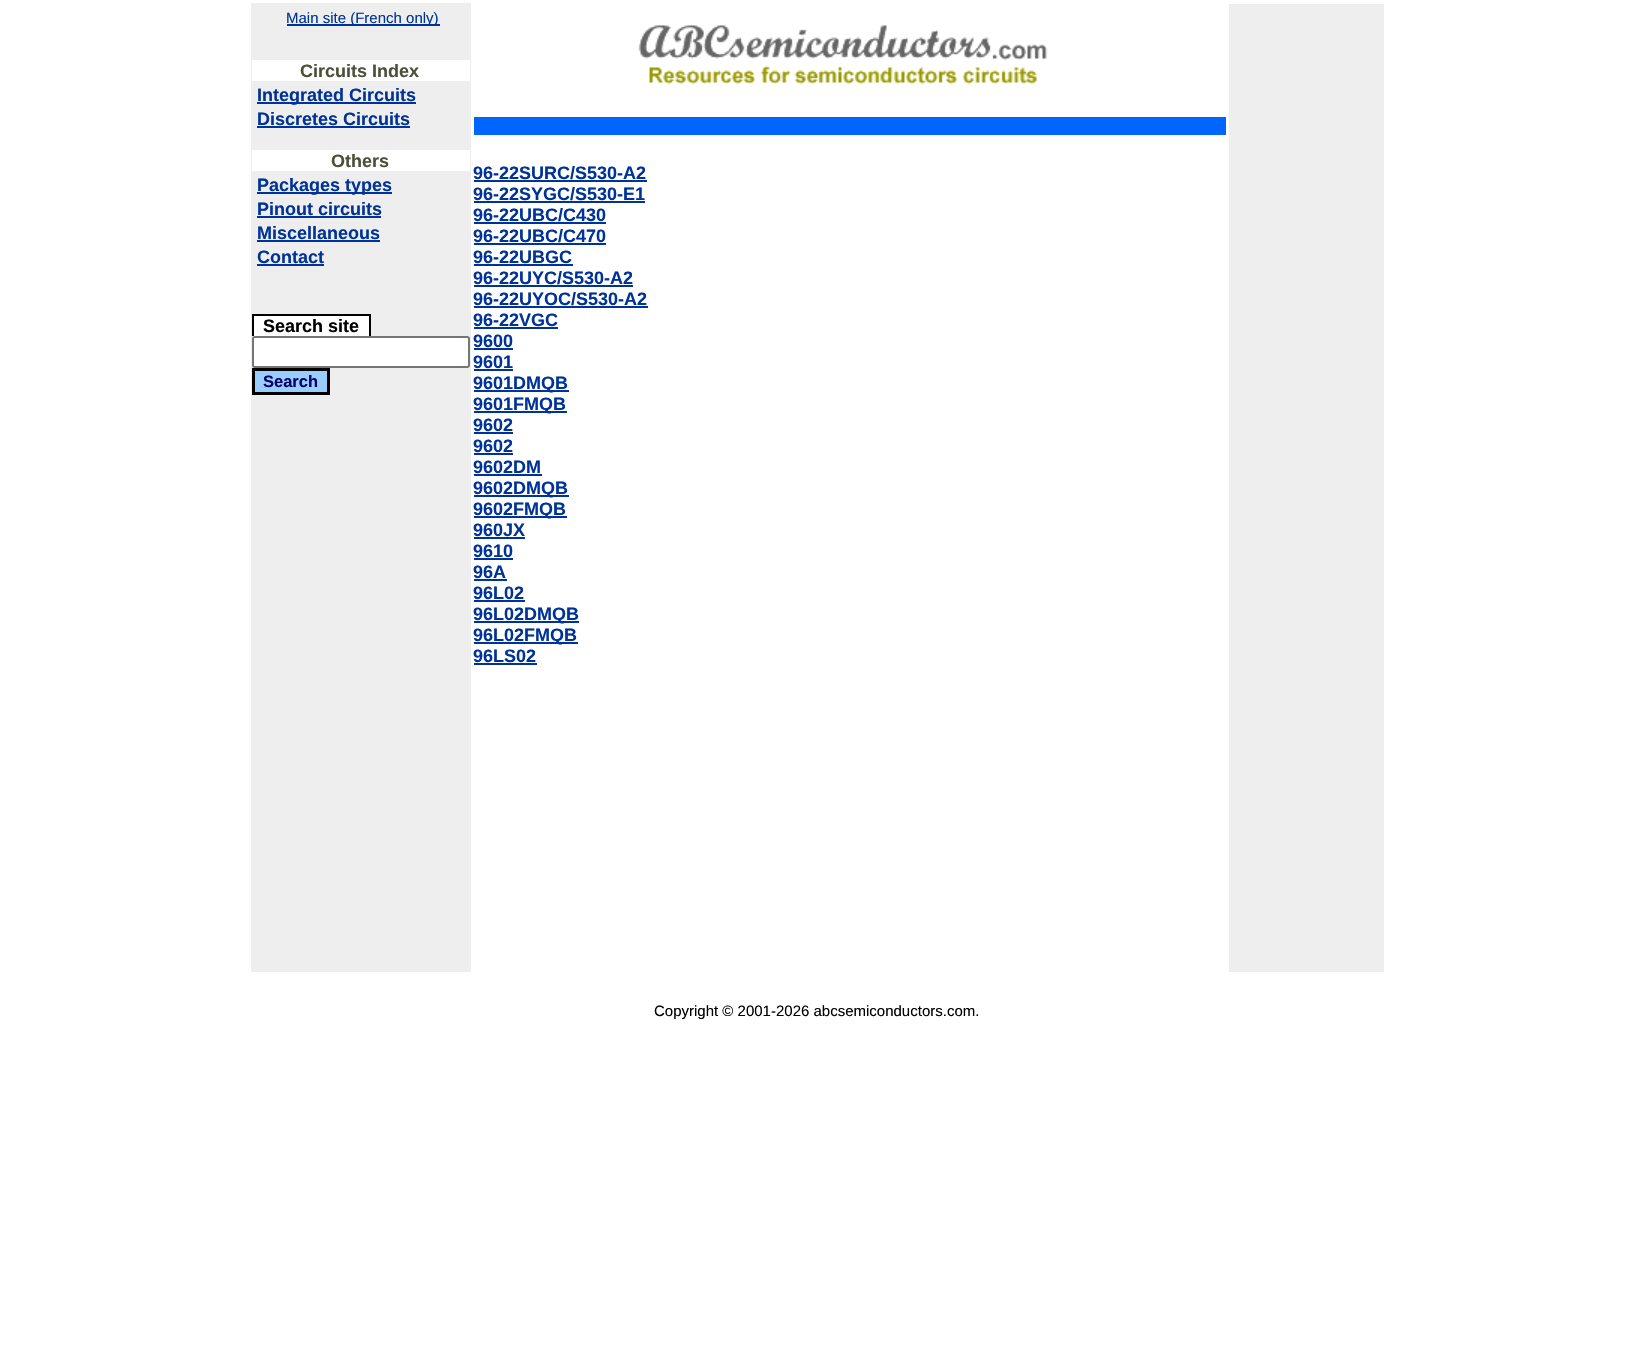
void draw(SkCanvas* canvas) {
	SkPaint fill;
	fill.setAntiAlias(true);
	auto makeFont = [&](const char* family, int weight, float size, bool italic = false) {
		SkFontStyle style(weight, SkFontStyle::kNormal_Width,
			italic ? SkFontStyle::kItalic_Slant : SkFontStyle::kUpright_Slant);
		SkFont result(fontMgr->matchFamilyStyle(family, style), size);
		result.setSubpixel(true);
		return result;
	};
	auto text = [&](const char* s, float x, float y, const SkFont& font) {
		canvas->drawString(s, x, y, font, fill);
	};
	auto box = [&](float l, float t, float r, float b) {
		canvas->drawRect(SkRect::MakeLTRB(l, t, r, b), fill);
	};
	auto picture = [&](const char* path, float l, float t, float r, float b) {
		auto image = SkImages::DeferredFromEncodedData(SkData::MakeFromFileName(path));
		canvas->drawImageRect(image, SkRect::MakeLTRB(l, t, r, b), SkSamplingOptions());
	};
	canvas->clear(0xFFFFFFFF);
	fill.setColor(0xFFEEEEEE);
	box(251, 3, 471, 972);
	fill.setColor(0xFF003399);
	box(287, 24, 440, 26);
	fill.setColor(0xFFFFFFFF);
	box(252, 60, 470, 81);
	fill.setColor(0xFF003399);
	box(257, 102, 416, 104);
	box(257, 126, 410, 128);
	fill.setColor(0xFFFFFFFF);
	box(252, 150, 470, 171);
	fill.setColor(0xFF003399);
	box(257, 192, 392, 194);
	box(257, 216, 381, 218);
	box(257, 240, 380, 242);
	box(257, 264, 324, 266);
	fill.setColor(0xFFFFFFFF);
	box(254, 316, 369, 336);
	fill.setColor(0xFF000000);
	box(252, 314, 371, 316);
	box(369, 314, 371, 336);
	box(252, 314, 254, 336);
	fill.setColor(0xFFFFFFFF);
	canvas->drawRoundRect(SkRect::MakeLTRB(253, 337, 469, 367), 2, 2, fill);
	fill.setStyle(SkPaint::kStroke_Style);
	fill.setStrokeWidth(2);
	fill.setColor(0xFF767676);
	canvas->drawRoundRect(SkRect::MakeLTRB(253, 337, 469, 367), 2, 2, fill);
	fill.setStyle(SkPaint::kFill_Style);
	fill.setColor(0xFF99CCFF);
	canvas->drawRect(SkRect::MakeLTRB(253.5f, 369.5f, 328.5f, 393.5f), fill);
	fill.setStyle(SkPaint::kStroke_Style);
	fill.setStrokeWidth(3);
	fill.setColor(0xFF000000);
	canvas->drawRect(SkRect::MakeLTRB(253.5f, 369.5f, 328.5f, 393.5f), fill);
	picture("image0.png", 638, 25, 1048, 85);
	fill.setStyle(SkPaint::kFill_Style);
	fill.setColor(0xFF0066FF);
	box(474, 117, 1226, 135);
	fill.setColor(0xFF003399);
	box(474, 180, 647, 182);
	box(474, 201, 645, 203);
	box(474, 222, 606, 224);
	box(474, 243, 606, 245);
	box(474, 264, 573, 266);
	box(474, 285, 633, 287);
	box(474, 306, 648, 308);
	box(474, 327, 558, 329);
	box(474, 348, 513, 350);
	box(474, 369, 513, 371);
	box(474, 390, 569, 392);
	box(474, 411, 567, 413);
	box(474, 432, 513, 434);
	box(474, 453, 513, 455);
	box(474, 474, 542, 476);
	box(474, 495, 569, 497);
	box(474, 516, 567, 518);
	box(474, 537, 525, 539);
	box(474, 558, 513, 560);
	box(474, 579, 507, 581);
	box(474, 600, 525, 602);
	box(474, 621, 579, 623);
	box(474, 642, 578, 644);
	box(474, 663, 537, 665);
	fill.setColor(0xFFEEEEEE);
	box(1229, 4, 1384, 972);
	auto font1 = makeFont("Liberation Sans", 400, 15);
	fill.setColor(0xFF003399);
	text("Main site (French only)", 286, 23, font1);
	auto font2 = makeFont("Liberation Sans", 700, 18);
	fill.setColor(0xFF4D5038);
	text("Circuits Index", 300, 77, font2);
	fill.setColor(0xFF003399);
	text("Integrated Circuits", 257, 101, font2);
	text("Discretes Circuits", 257, 125, font2);
	fill.setColor(0xFF4D5038);
	text("Others", 331, 167, font2);
	fill.setColor(0xFF003399);
	text("Packages types", 257, 191, font2);
	text("Pinout circuits", 257, 215, font2);
	text("Miscellaneous", 257, 239, font2);
	text("Contact", 257, 263, font2);
	fill.setColor(0xFF000000);
	text("Search site", 263, 332, font2);
	auto font3 = makeFont("Liberation Sans", 700, 16.5f);
	fill.setColor(0xFF000066);
	text("Search", 263, 387, font3);
	fill.setColor(0xFF003399);
	text("96-22SURC/S530-A2", 473, 179, font2);
	text("96-22SYGC/S530-E1", 473, 200, font2);
	text("96-22UBC/C430", 473, 221, font2);
	text("96-22UBC/C470", 473, 242, font2);
	text("96-22UBGC", 473, 263, font2);
	text("96-22UYC/S530-A2", 473, 284, font2);
	text("96-22UYOC/S530-A2", 473, 305, font2);
	text("96-22VGC", 473, 326, font2);
	text("9600", 473, 347, font2);
	text("9601", 473, 368, font2);
	text("9601DMQB", 473, 389, font2);
	text("9601FMQB", 473, 410, font2);
	text("9602", 473, 431, font2);
	text("9602", 473, 452, font2);
	text("9602DM", 473, 473, font2);
	text("9602DMQB", 473, 494, font2);
	text("9602FMQB", 473, 515, font2);
	text("960JX", 473, 536, font2);
	text("9610", 473, 557, font2);
	text("96A", 473, 578, font2);
	text("96L02", 473, 599, font2);
	text("96L02DMQB", 473, 620, font2);
	text("96L02FMQB", 473, 641, font2);
	text("96LS02", 473, 662, font2);
	fill.setColor(0xFF000000);
	text("Copyright © 2001-2026 abcsemiconductors.com.", 654, 1016, font1);
}
